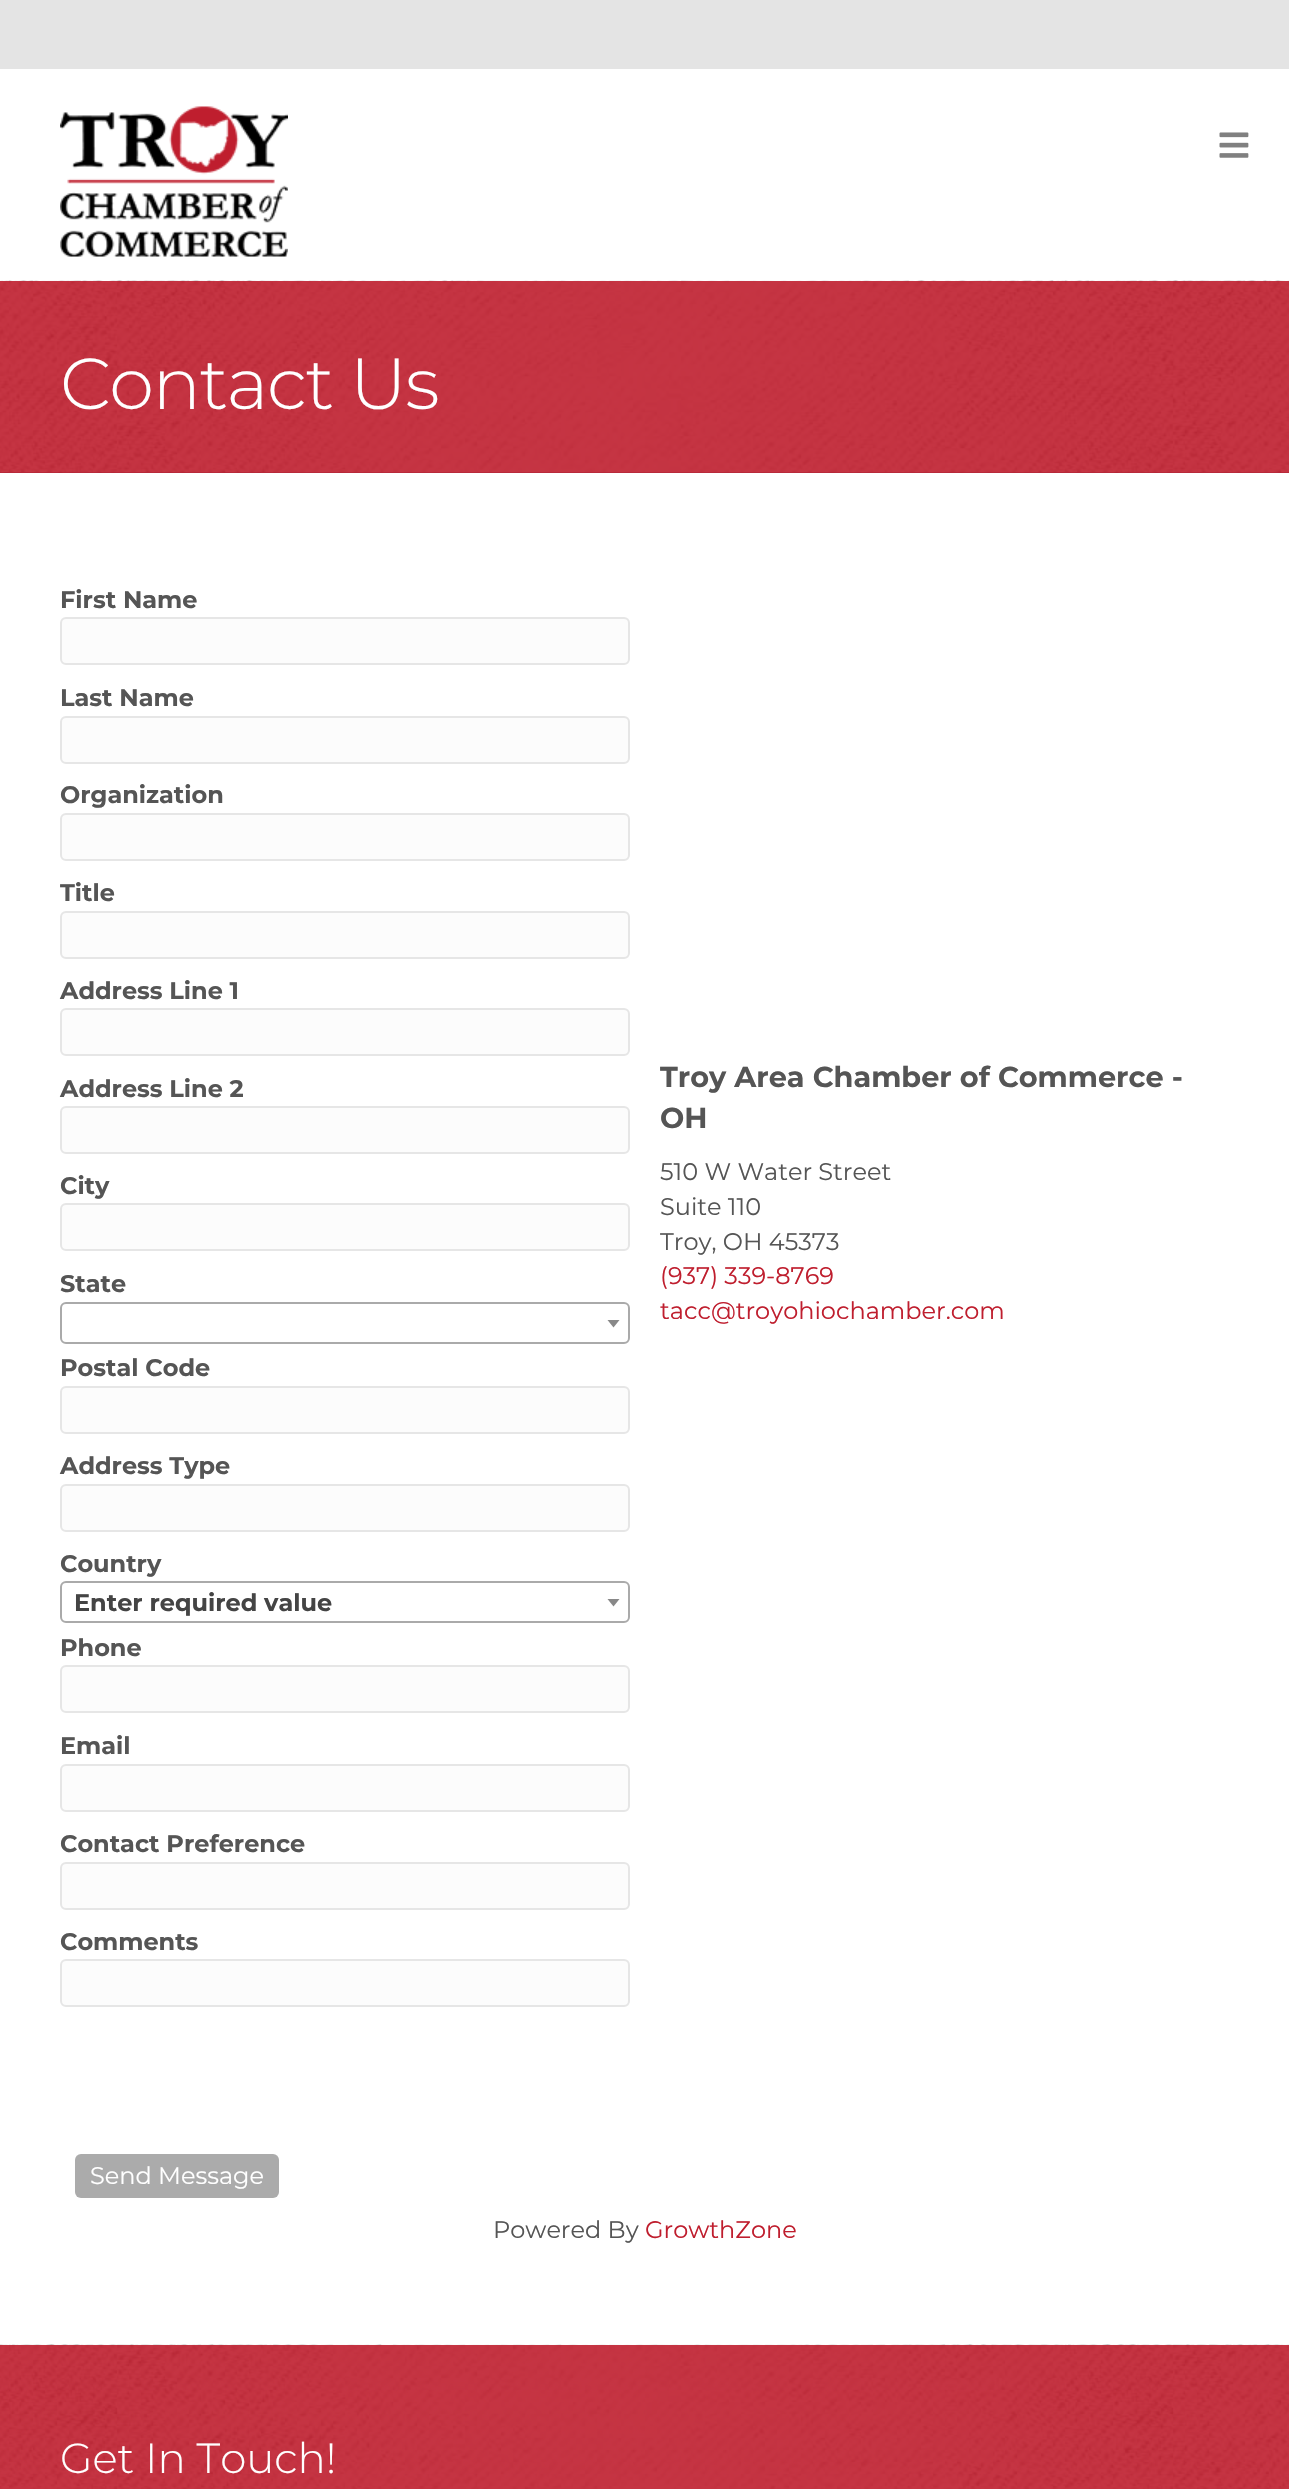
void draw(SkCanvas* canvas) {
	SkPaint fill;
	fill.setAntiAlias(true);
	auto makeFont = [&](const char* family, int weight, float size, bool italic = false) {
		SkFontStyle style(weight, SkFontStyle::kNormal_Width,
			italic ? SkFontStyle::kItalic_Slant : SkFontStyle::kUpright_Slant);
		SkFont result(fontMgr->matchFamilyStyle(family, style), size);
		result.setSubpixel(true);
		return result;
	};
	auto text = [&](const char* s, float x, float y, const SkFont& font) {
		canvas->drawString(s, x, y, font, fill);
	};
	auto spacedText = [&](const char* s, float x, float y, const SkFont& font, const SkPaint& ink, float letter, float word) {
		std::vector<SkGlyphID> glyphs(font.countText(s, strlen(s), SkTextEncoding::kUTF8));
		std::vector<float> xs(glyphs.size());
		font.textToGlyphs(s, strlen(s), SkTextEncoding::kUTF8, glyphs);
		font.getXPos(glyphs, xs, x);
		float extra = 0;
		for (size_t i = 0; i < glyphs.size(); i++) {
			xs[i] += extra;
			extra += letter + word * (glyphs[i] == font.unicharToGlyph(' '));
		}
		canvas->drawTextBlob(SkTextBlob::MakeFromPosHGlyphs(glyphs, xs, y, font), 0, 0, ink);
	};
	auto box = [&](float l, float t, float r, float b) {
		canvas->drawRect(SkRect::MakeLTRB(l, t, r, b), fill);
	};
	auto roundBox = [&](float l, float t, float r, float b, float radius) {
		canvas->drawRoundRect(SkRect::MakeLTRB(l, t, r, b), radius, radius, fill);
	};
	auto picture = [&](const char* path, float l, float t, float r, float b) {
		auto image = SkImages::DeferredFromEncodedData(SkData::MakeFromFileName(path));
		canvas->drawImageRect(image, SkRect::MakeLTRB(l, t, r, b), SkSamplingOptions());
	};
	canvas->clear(0xFFFFFFFF);
	fill.setColor(0xFFE4E4E4);
	box(0, 0, 1289, 69);
	picture("image0.png", 60, 106, 288, 257);
	picture("image1.png", 1219, 132, 1249, 158);
	fill.setColor(0xFFAC2034);
	box(0, 472, 1289, 473);
	picture("image2.png", 0, 280, 1289, 473);
	fill.setColor(0xFFFCFCFC);
	canvas->drawRoundRect(SkRect::MakeLTRB(61, 618, 629, 664), 5, 5, fill);
	fill.setStyle(SkPaint::kStroke_Style);
	fill.setStrokeWidth(2);
	fill.setColor(0xFFE6E6E6);
	canvas->drawRoundRect(SkRect::MakeLTRB(61, 618, 629, 664), 5, 5, fill);
	fill.setStyle(SkPaint::kFill_Style);
	fill.setColor(0xFFFCFCFC);
	canvas->drawRoundRect(SkRect::MakeLTRB(61, 717, 629, 763), 5, 5, fill);
	fill.setStyle(SkPaint::kStroke_Style);
	fill.setColor(0xFFE6E6E6);
	canvas->drawRoundRect(SkRect::MakeLTRB(61, 717, 629, 763), 5, 5, fill);
	fill.setStyle(SkPaint::kFill_Style);
	fill.setColor(0xFFFCFCFC);
	canvas->drawRoundRect(SkRect::MakeLTRB(61, 814, 629, 860), 5, 5, fill);
	fill.setStyle(SkPaint::kStroke_Style);
	fill.setColor(0xFFE6E6E6);
	canvas->drawRoundRect(SkRect::MakeLTRB(61, 814, 629, 860), 5, 5, fill);
	fill.setStyle(SkPaint::kFill_Style);
	fill.setColor(0xFFFCFCFC);
	canvas->drawRoundRect(SkRect::MakeLTRB(61, 912, 629, 958), 5, 5, fill);
	fill.setStyle(SkPaint::kStroke_Style);
	fill.setColor(0xFFE6E6E6);
	canvas->drawRoundRect(SkRect::MakeLTRB(61, 912, 629, 958), 5, 5, fill);
	fill.setStyle(SkPaint::kFill_Style);
	fill.setColor(0xFFFCFCFC);
	canvas->drawRoundRect(SkRect::MakeLTRB(61, 1009, 629, 1055), 5, 5, fill);
	fill.setStyle(SkPaint::kStroke_Style);
	fill.setColor(0xFFE6E6E6);
	canvas->drawRoundRect(SkRect::MakeLTRB(61, 1009, 629, 1055), 5, 5, fill);
	fill.setStyle(SkPaint::kFill_Style);
	fill.setColor(0xFFFCFCFC);
	canvas->drawRoundRect(SkRect::MakeLTRB(61, 1107, 629, 1153), 5, 5, fill);
	fill.setStyle(SkPaint::kStroke_Style);
	fill.setColor(0xFFE6E6E6);
	canvas->drawRoundRect(SkRect::MakeLTRB(61, 1107, 629, 1153), 5, 5, fill);
	fill.setStyle(SkPaint::kFill_Style);
	fill.setColor(0xFFFCFCFC);
	canvas->drawRoundRect(SkRect::MakeLTRB(61, 1204, 629, 1250), 5, 5, fill);
	fill.setStyle(SkPaint::kStroke_Style);
	fill.setColor(0xFFE6E6E6);
	canvas->drawRoundRect(SkRect::MakeLTRB(61, 1204, 629, 1250), 5, 5, fill);
	fill.setColor(0xFFAAAAAA);
	canvas->drawRoundRect(SkRect::MakeLTRB(61, 1303, 629, 1343), 5, 5, fill);
	fill.setStyle(SkPaint::kFill_Style);
	fill.setColor(0xFF888888);
	canvas->drawPath(SkPathBuilder().moveTo(607.5f, 1320).lineTo(619.5f, 1320).lineTo(613.5f, 1327.5f).close().detach(), fill);
	fill.setColor(0xFFFCFCFC);
	canvas->drawRoundRect(SkRect::MakeLTRB(61, 1387, 629, 1433), 5, 5, fill);
	fill.setStyle(SkPaint::kStroke_Style);
	fill.setColor(0xFFE6E6E6);
	canvas->drawRoundRect(SkRect::MakeLTRB(61, 1387, 629, 1433), 5, 5, fill);
	fill.setStyle(SkPaint::kFill_Style);
	fill.setColor(0xFFFCFCFC);
	canvas->drawRoundRect(SkRect::MakeLTRB(61, 1485, 629, 1531), 5, 5, fill);
	fill.setStyle(SkPaint::kStroke_Style);
	fill.setColor(0xFFE6E6E6);
	canvas->drawRoundRect(SkRect::MakeLTRB(61, 1485, 629, 1531), 5, 5, fill);
	fill.setColor(0xFFAAAAAA);
	canvas->drawRoundRect(SkRect::MakeLTRB(61, 1582, 629, 1622), 5, 5, fill);
	fill.setStyle(SkPaint::kFill_Style);
	fill.setColor(0xFF888888);
	canvas->drawPath(SkPathBuilder().moveTo(607.5f, 1599).lineTo(619.5f, 1599).lineTo(613.5f, 1606.5f).close().detach(), fill);
	fill.setColor(0xFFFCFCFC);
	canvas->drawRoundRect(SkRect::MakeLTRB(61, 1666, 629, 1712), 5, 5, fill);
	fill.setStyle(SkPaint::kStroke_Style);
	fill.setColor(0xFFE6E6E6);
	canvas->drawRoundRect(SkRect::MakeLTRB(61, 1666, 629, 1712), 5, 5, fill);
	fill.setStyle(SkPaint::kFill_Style);
	fill.setColor(0xFFFCFCFC);
	canvas->drawRoundRect(SkRect::MakeLTRB(61, 1765, 629, 1811), 5, 5, fill);
	fill.setStyle(SkPaint::kStroke_Style);
	fill.setColor(0xFFE6E6E6);
	canvas->drawRoundRect(SkRect::MakeLTRB(61, 1765, 629, 1811), 5, 5, fill);
	fill.setStyle(SkPaint::kFill_Style);
	fill.setColor(0xFFFCFCFC);
	canvas->drawRoundRect(SkRect::MakeLTRB(61, 1863, 629, 1909), 5, 5, fill);
	fill.setStyle(SkPaint::kStroke_Style);
	fill.setColor(0xFFE6E6E6);
	canvas->drawRoundRect(SkRect::MakeLTRB(61, 1863, 629, 1909), 5, 5, fill);
	fill.setStyle(SkPaint::kFill_Style);
	fill.setColor(0xFFFCFCFC);
	canvas->drawRoundRect(SkRect::MakeLTRB(61, 1960, 629, 2006), 5, 5, fill);
	fill.setStyle(SkPaint::kStroke_Style);
	fill.setColor(0xFFE6E6E6);
	canvas->drawRoundRect(SkRect::MakeLTRB(61, 1960, 629, 2006), 5, 5, fill);
	fill.setStyle(SkPaint::kFill_Style);
	fill.setColor(0xFFABABAB);
	roundBox(75, 2154, 279, 2198, 6);
	picture("image3.png", 0, 2344, 1289, 2489);
	auto font1 = makeFont("Montserrat", 300, 72);
	fill.setColor(0xFFFFFFFF);
	spacedText("Contact Us", 60, 409, font1, fill, -1.5f, 0);
	auto font2 = makeFont("Montserrat", 700, 24);
	fill.setColor(0xFF555555);
	text("First Name", 60, 608, font2);
	text("Last Name", 60, 706, font2);
	text("Organization", 60, 803, font2);
	text("Title", 60, 901, font2);
	text("Address Line 1", 60, 999, font2);
	text("Address Line 2", 60, 1097, font2);
	text("City", 60, 1194, font2);
	text("State", 60, 1292, font2);
	text("Postal Code", 60, 1376, font2);
	text("Address Type", 60, 1474, font2);
	text("Country", 60, 1572, font2);
	fill.setColor(0xFF444444);
	text("Enter required value", 74, 1611, font2);
	fill.setColor(0xFF555555);
	text("Phone", 60, 1656, font2);
	text("Email", 60, 1754, font2);
	text("Contact Preference", 60, 1852, font2);
	text("Comments", 60, 1950, font2);
	auto font3 = makeFont("Montserrat", 400, 24);
	fill.setColor(0xFFFFFFFF);
	text("Send Message", 90, 2184, font3);
	auto font4 = makeFont("Montserrat", 700, 28.75f);
	fill.setColor(0xFF555555);
	text("Troy Area Chamber of Commerce -", 660, 1087, font4);
	text("OH", 660, 1128, font4);
	text("510 W Water Street", 660, 1180, font3);
	text("Suite 110", 660, 1215, font3);
	text("Troy, OH 45373", 660, 1250, font3);
	fill.setColor(0xFFBF1E2E);
	text("(937) 339-8769", 660, 1284, font3);
	text("tacc@troyohiochamber.com", 660, 1319, font3);
	fill.setColor(0xFF555555);
	text("Powered By", 493, 2238, font3);
	fill.setColor(0xFFBF1E2E);
	text("GrowthZone", 645, 2238, font3);
	auto font5 = makeFont("Montserrat", 300, 42);
	fill.setColor(0xFFFFFFFF);
	text("Get In Touch!", 60, 2473, font5);
}
